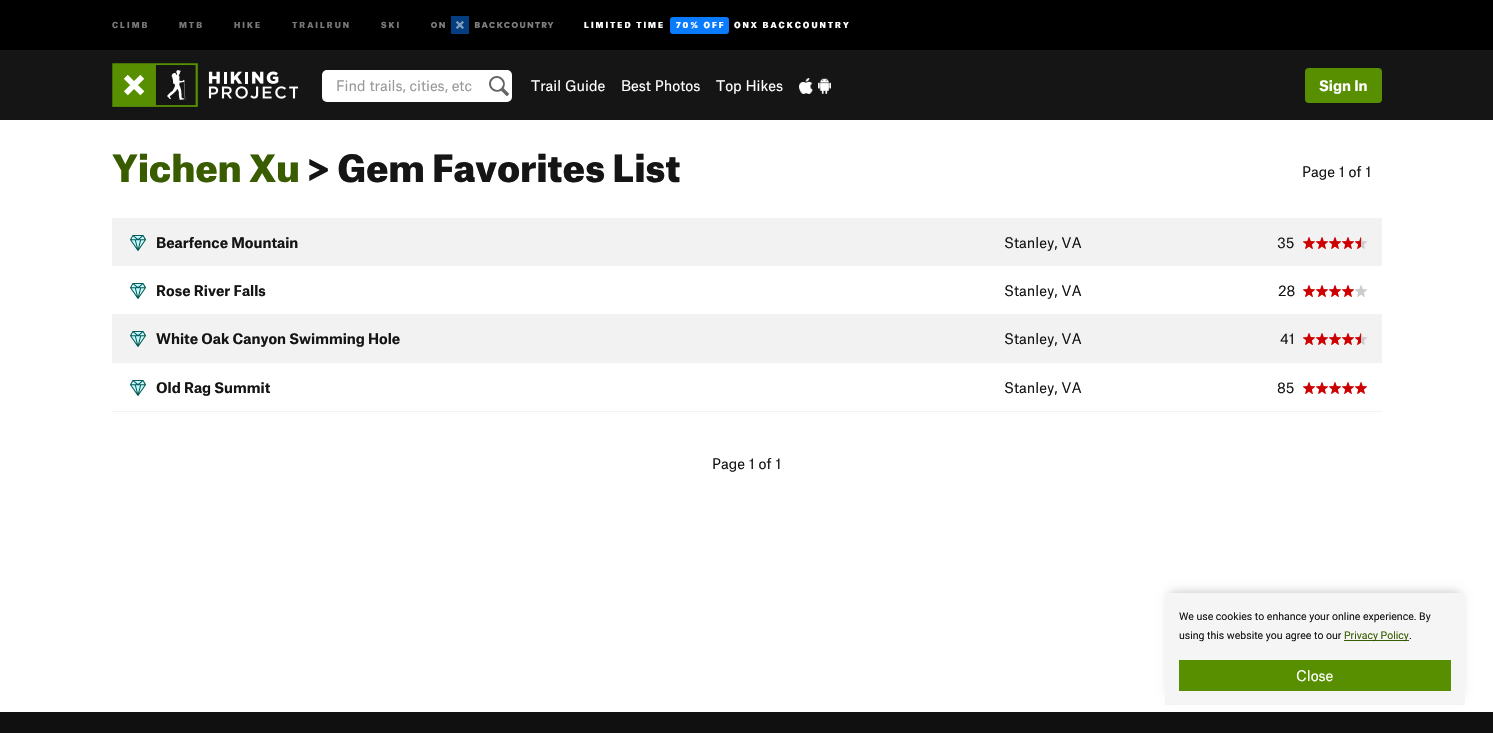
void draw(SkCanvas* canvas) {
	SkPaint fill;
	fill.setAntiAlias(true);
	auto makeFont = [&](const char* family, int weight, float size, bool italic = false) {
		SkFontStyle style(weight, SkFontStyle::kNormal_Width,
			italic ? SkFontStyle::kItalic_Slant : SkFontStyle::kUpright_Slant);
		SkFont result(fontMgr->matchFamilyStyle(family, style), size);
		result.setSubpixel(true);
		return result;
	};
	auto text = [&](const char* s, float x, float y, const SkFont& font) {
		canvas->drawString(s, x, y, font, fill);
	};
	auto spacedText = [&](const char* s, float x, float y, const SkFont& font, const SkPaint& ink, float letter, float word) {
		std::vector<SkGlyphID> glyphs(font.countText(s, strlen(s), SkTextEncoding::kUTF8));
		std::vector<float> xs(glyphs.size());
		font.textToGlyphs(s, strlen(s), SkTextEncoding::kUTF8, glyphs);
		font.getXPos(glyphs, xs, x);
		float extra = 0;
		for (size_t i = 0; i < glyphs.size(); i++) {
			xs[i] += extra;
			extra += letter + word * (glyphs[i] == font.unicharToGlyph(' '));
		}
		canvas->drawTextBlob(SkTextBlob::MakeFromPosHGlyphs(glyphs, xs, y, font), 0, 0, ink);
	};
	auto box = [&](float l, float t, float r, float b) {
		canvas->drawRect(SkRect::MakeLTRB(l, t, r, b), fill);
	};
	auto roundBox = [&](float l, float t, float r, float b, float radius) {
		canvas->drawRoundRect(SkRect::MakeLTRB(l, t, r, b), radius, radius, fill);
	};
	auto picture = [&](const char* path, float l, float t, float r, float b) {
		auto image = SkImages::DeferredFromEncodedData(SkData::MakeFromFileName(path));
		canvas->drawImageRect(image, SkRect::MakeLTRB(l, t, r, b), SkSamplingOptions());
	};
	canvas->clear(0xFFFFFFFF);
	fill.setColor(0xFF151515);
	box(0, 50, 1493, 120);
	fill.setColor(0xFF000000);
	box(0, 0, 1493, 50);
	picture("image0.png", 431, 16, 554, 34);
	fill.setColor(0xFF087BFF);
	roundBox(670, 17, 729, 34, 3);
	picture("image1.png", 112, 63, 298, 107);
	fill.setColor(0xFFFFFFFF);
	roundBox(322, 70, 512, 102, 5);
	picture("image2.png", 489, 76, 509, 96);
	picture("image3.png", 799, 78, 813, 94);
	picture("image4.png", 818, 78, 831, 94);
	fill.setColor(0xFF588F00);
	roundBox(1305, 68, 1382, 103, 4);
	fill.setColor(0xFFF2F2F2);
	box(112, 411, 1382, 412);
	box(112, 218, 1382, 266);
	picture("image5.png", 130, 235, 146, 251);
	picture("image6.png", 1303, 237, 1315, 249);
	picture("image6.png", 1316, 237, 1328, 249);
	picture("image6.png", 1329, 237, 1341, 249);
	picture("image6.png", 1342, 237, 1354, 249);
	picture("image7.png", 1355, 237, 1367, 249);
	picture("image8.png", 130, 283, 146, 299);
	picture("image9.png", 1303, 285, 1315, 297);
	picture("image9.png", 1316, 285, 1328, 297);
	picture("image9.png", 1329, 285, 1341, 297);
	picture("image9.png", 1342, 285, 1354, 297);
	picture("image10.png", 1355, 285, 1367, 297);
	box(112, 314, 1382, 363);
	picture("image5.png", 130, 331, 146, 347);
	picture("image6.png", 1303, 333, 1315, 345);
	picture("image6.png", 1316, 333, 1328, 345);
	picture("image6.png", 1329, 333, 1341, 345);
	picture("image6.png", 1342, 333, 1354, 345);
	picture("image7.png", 1355, 333, 1367, 345);
	picture("image8.png", 130, 380, 146, 396);
	picture("image9.png", 1303, 382, 1315, 394);
	picture("image9.png", 1316, 382, 1328, 394);
	picture("image9.png", 1329, 382, 1341, 394);
	picture("image9.png", 1342, 382, 1354, 394);
	picture("image9.png", 1355, 382, 1367, 394);
	fill.setColor(0x40000000);
	fill.setMaskFilter(SkMaskFilter::MakeBlur(kNormal_SkBlurStyle, 5));
	canvas->drawRect(SkRect::MakeLTRB(1170, 593, 1460, 695), fill);
	fill.setMaskFilter(nullptr);
	fill.setColor(0xFFF5F5F5);
	box(1165, 593, 1465, 705);
	fill.setColor(0xFF395C00);
	box(1344, 640, 1409, 641);
	fill.setColor(0xFF588F00);
	box(1179, 660, 1451, 691);
	fill.setColor(0xFF101010);
	box(0, 712, 1493, 733);
	auto font1 = makeFont("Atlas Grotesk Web", 900, 8);
	fill.setColor(0xFF777777);
	spacedText("CLIMB", 112, 28, font1, fill, 2, 0);
	spacedText("MTB", 179, 28, font1, fill, 2, 0);
	spacedText("HIKE", 234, 28, font1, fill, 2, 0);
	spacedText("TRAILRUN", 292, 28, font1, fill, 2, 0);
	spacedText("SKI", 381, 28, font1, fill, 2, 0);
	fill.setColor(0xFFFFFFFF);
	spacedText("LIMITED TIME", 584, 28, font1, fill, 2, 0);
	spacedText("70% OFF", 676, 28, font1, fill, 2, 0);
	spacedText("ONX BACKCOUNTRY", 734, 28, font1, fill, 2, 0);
	auto font2 = makeFont("Atlas Grotesk Web", 400, 14);
	fill.setColor(0xFF999999);
	text("Find trails, cities, etc", 336, 91, font2);
	fill.setColor(0xFFFFFFFF);
	text("Trail Guide", 531, 91, font2);
	text("Best Photos", 621, 91, font2);
	text("Top Hikes", 716, 91, font2);
	auto font3 = makeFont("Atlas Grotesk Web", 700, 14);
	text("Sign In", 1319, 91, font3);
	auto font4 = makeFont("Atlas Grotesk Web", 900, 36);
	fill.setColor(0xFF395C00);
	text("Yichen Xu", 112, 182, font4);
	fill.setColor(0xFF151515);
	text("> Gem Favorites List", 307, 182, font4);
	text("Page 1 of 1", 1302, 177, font2);
	text("Bearfence Mountain", 156, 248, font3);
	text("Stanley, VA", 1004, 248, font2);
	text("35", 1277, 248, font2);
	text("Rose River Falls", 156, 296, font3);
	text("Stanley, VA", 1004, 296, font2);
	text("28", 1278, 296, font2);
	text("White Oak Canyon Swimming Hole", 156, 344, font3);
	text("Stanley, VA", 1004, 344, font2);
	text("41", 1280, 344, font2);
	text("Old Rag Summit", 156, 393, font3);
	text("Stanley, VA", 1004, 393, font2);
	text("85", 1277, 393, font2);
	text("Page 1 of 1", 712, 469, font2);
	auto font5 = makeFont("Roboto", 400, 10.5f);
	text("We use cookies to enhance your online experience. By", 1179, 620, font5);
	text("using this website you agree to our", 1179, 639, font5);
	fill.setColor(0xFF395C00);
	text("Privacy Policy", 1344, 639, font5);
	fill.setColor(0xFF151515);
	text(".", 1409, 639, font5);
	fill.setColor(0xFFFFFFFF);
	text("Close", 1296, 681, font2);
}
